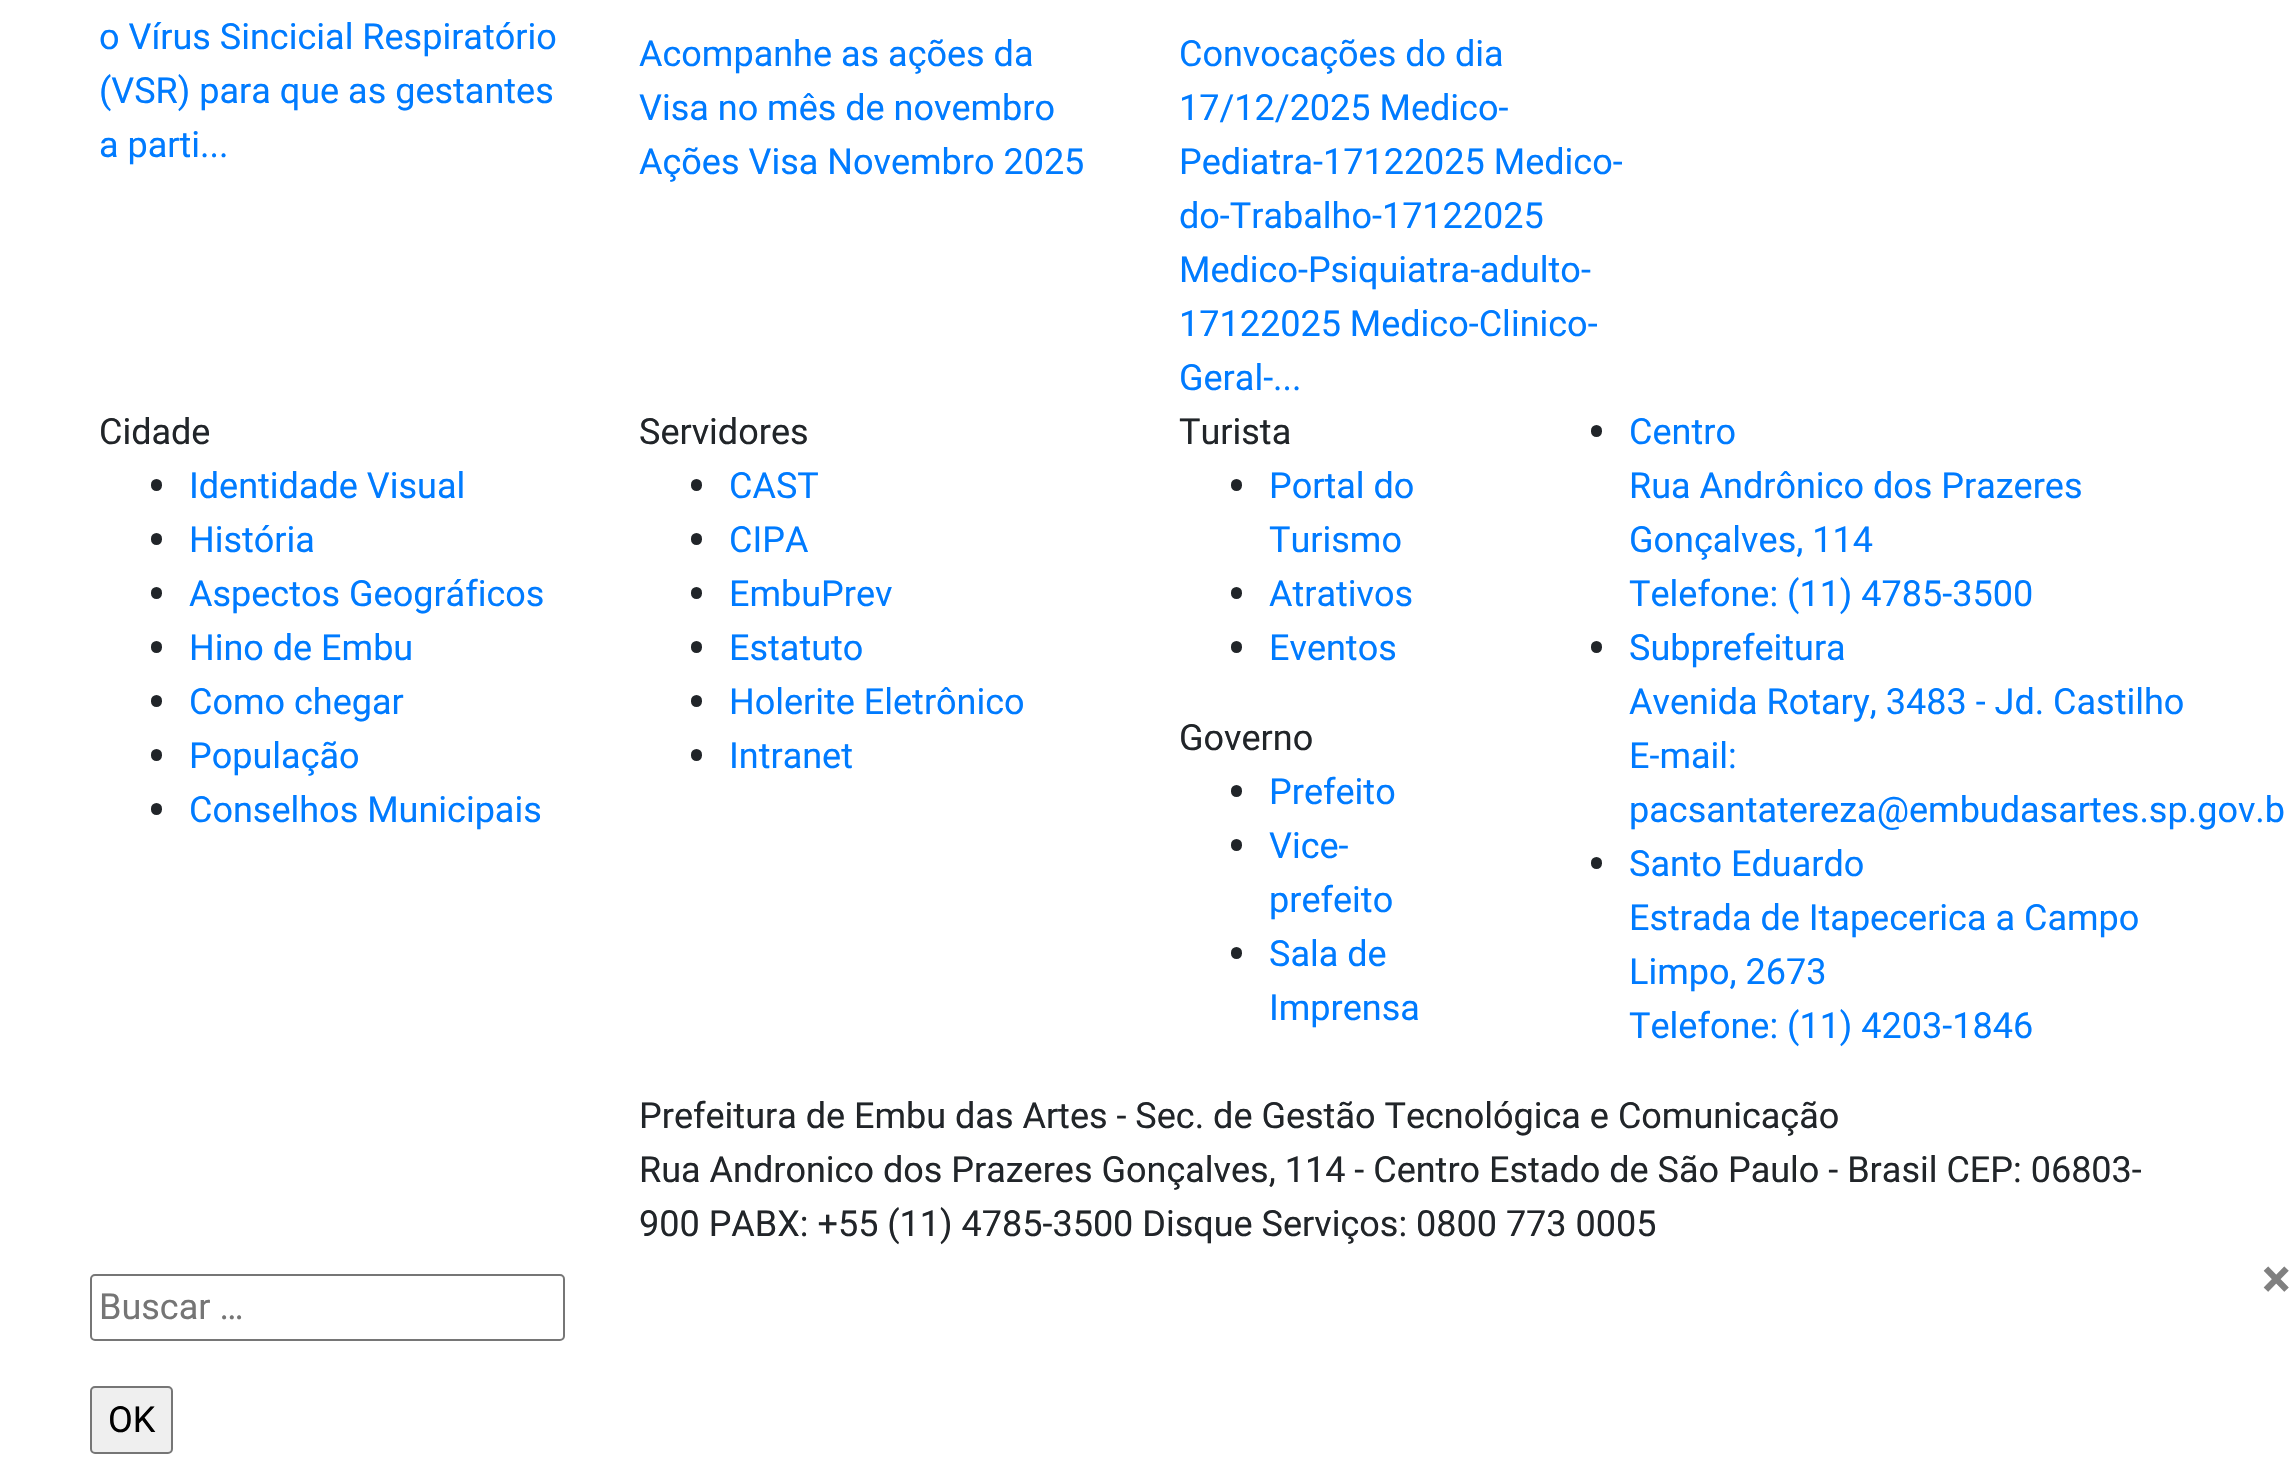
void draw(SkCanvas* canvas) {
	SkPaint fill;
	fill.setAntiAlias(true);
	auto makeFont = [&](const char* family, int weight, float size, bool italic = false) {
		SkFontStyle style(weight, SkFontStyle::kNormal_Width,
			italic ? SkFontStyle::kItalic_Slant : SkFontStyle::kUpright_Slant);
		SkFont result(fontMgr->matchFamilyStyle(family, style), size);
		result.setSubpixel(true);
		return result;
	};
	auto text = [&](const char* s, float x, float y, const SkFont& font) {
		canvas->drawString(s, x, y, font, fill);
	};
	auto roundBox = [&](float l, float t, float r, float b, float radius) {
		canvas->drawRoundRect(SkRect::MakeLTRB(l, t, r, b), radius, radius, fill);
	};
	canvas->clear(0xFFFFFFFF);
	fill.setColor(0xFF212529);
	roundBox(151, 479, 162, 491, 5.5f);
	roundBox(151, 533, 162, 545, 5.5f);
	roundBox(151, 587, 162, 599, 5.5f);
	roundBox(151, 641, 162, 653, 5.5f);
	roundBox(151, 695, 162, 707, 5.5f);
	roundBox(151, 749, 162, 761, 5.5f);
	roundBox(151, 803, 162, 815, 5.5f);
	roundBox(691, 479, 702, 491, 5.5f);
	roundBox(691, 533, 702, 545, 5.5f);
	roundBox(691, 587, 702, 599, 5.5f);
	roundBox(691, 641, 702, 653, 5.5f);
	roundBox(691, 695, 702, 707, 5.5f);
	roundBox(691, 749, 702, 761, 5.5f);
	roundBox(1231, 479, 1242, 491, 5.5f);
	roundBox(1231, 587, 1242, 599, 5.5f);
	roundBox(1231, 641, 1242, 653, 5.5f);
	roundBox(1231, 785, 1242, 797, 5.5f);
	roundBox(1231, 839, 1242, 851, 5.5f);
	roundBox(1231, 947, 1242, 959, 5.5f);
	roundBox(1591, 425, 1602, 437, 5.5f);
	roundBox(1591, 641, 1602, 653, 5.5f);
	roundBox(1591, 857, 1602, 869, 5.5f);
	fill.setStyle(SkPaint::kStroke_Style);
	fill.setStrokeWidth(2);
	fill.setColor(0xFF767676);
	canvas->drawRoundRect(SkRect::MakeLTRB(91, 1275, 564, 1340), 4, 4, fill);
	fill.setStyle(SkPaint::kFill_Style);
	fill.setColor(0xFFEFEFEF);
	canvas->drawRoundRect(SkRect::MakeLTRB(91, 1387, 172, 1453), 4, 4, fill);
	fill.setStyle(SkPaint::kStroke_Style);
	fill.setColor(0xFF767676);
	canvas->drawRoundRect(SkRect::MakeLTRB(91, 1387, 172, 1453), 4, 4, fill);
	auto font1 = makeFont("Roboto", 400, 36);
	fill.setStyle(SkPaint::kFill_Style);
	fill.setColor(0xFF007BFF);
	text("o Vírus Sincicial Respiratório", 99, 49, font1);
	text("(VSR) para que as gestantes", 99, 103, font1);
	text("a parti...", 99, 157, font1);
	text("Acompanhe as ações da", 639, 66, font1);
	text("Visa no mês de novembro", 639, 120, font1);
	text("Ações Visa Novembro 2025", 639, 174, font1);
	text("Convocações do dia", 1179, 66, font1);
	text("17/12/2025 Medico-", 1179, 120, font1);
	text("Pediatra-17122025 Medico-", 1179, 174, font1);
	text("do-Trabalho-17122025", 1179, 228, font1);
	text("Medico-Psiquiatra-adulto-", 1179, 282, font1);
	text("17122025 Medico-Clinico-", 1179, 336, font1);
	text("Geral-...", 1179, 390, font1);
	fill.setColor(0xFF212529);
	text("Cidade", 99, 444, font1);
	fill.setColor(0xFF007BFF);
	text("Identidade Visual", 189, 498, font1);
	text("História", 189, 552, font1);
	text("Aspectos Geográficos", 189, 606, font1);
	text("Hino de Embu", 189, 660, font1);
	text("Como chegar", 189, 714, font1);
	text("População", 189, 768, font1);
	text("Conselhos Municipais", 189, 822, font1);
	fill.setColor(0xFF212529);
	text("Servidores", 639, 444, font1);
	fill.setColor(0xFF007BFF);
	text("CAST", 729, 498, font1);
	text("CIPA", 729, 552, font1);
	text("EmbuPrev", 729, 606, font1);
	text("Estatuto", 729, 660, font1);
	text("Holerite Eletrônico", 729, 714, font1);
	text("Intranet", 729, 768, font1);
	fill.setColor(0xFF212529);
	text("Turista", 1179, 444, font1);
	fill.setColor(0xFF007BFF);
	text("Portal do", 1269, 498, font1);
	text("Turismo", 1269, 552, font1);
	text("Atrativos", 1269, 606, font1);
	text("Eventos", 1269, 660, font1);
	fill.setColor(0xFF212529);
	text("Governo", 1179, 750, font1);
	fill.setColor(0xFF007BFF);
	text("Prefeito", 1269, 804, font1);
	text("Vice-", 1269, 858, font1);
	text("prefeito", 1269, 912, font1);
	text("Sala de", 1269, 966, font1);
	text("Imprensa", 1269, 1020, font1);
	text("Centro", 1629, 444, font1);
	text("Rua Andrônico dos Prazeres", 1629, 498, font1);
	text("Gonçalves, 114", 1629, 552, font1);
	text("Telefone: (11) 4785-3500", 1629, 606, font1);
	text("Subprefeitura", 1629, 660, font1);
	text("Avenida Rotary, 3483 - Jd. Castilho", 1629, 714, font1);
	text("E-mail:", 1629, 768, font1);
	text("pacsantatereza@embudasartes.sp.gov.b", 1629, 822, font1);
	text("Santo Eduardo", 1629, 876, font1);
	text("Estrada de Itapecerica a Campo", 1629, 930, font1);
	text("Limpo, 2673", 1629, 984, font1);
	text("Telefone: (11) 4203-1846", 1629, 1038, font1);
	fill.setColor(0xFF212529);
	text("Prefeitura de Embu das Artes - Sec. de Gestão Tecnológica e Comunicação", 639, 1128, font1);
	text("Rua Andronico dos Prazeres Gonçalves, 114 - Centro Estado de São Paulo - Brasil CEP: 06803-", 639, 1182, font1);
	text("900 PABX: +55 (11) 4785-3500 Disque Serviços: 0800 773 0005", 639, 1236, font1);
	auto font2 = makeFont("Roboto", 700, 54);
	fill.setColor(0xFF808080);
	text("×", 2262, 1297, font2);
	fill.setColor(0xFF757575);
	text("Buscar …", 99, 1319, font1);
	fill.setColor(0xFF000000);
	text("OK", 108, 1432, font1);
}
